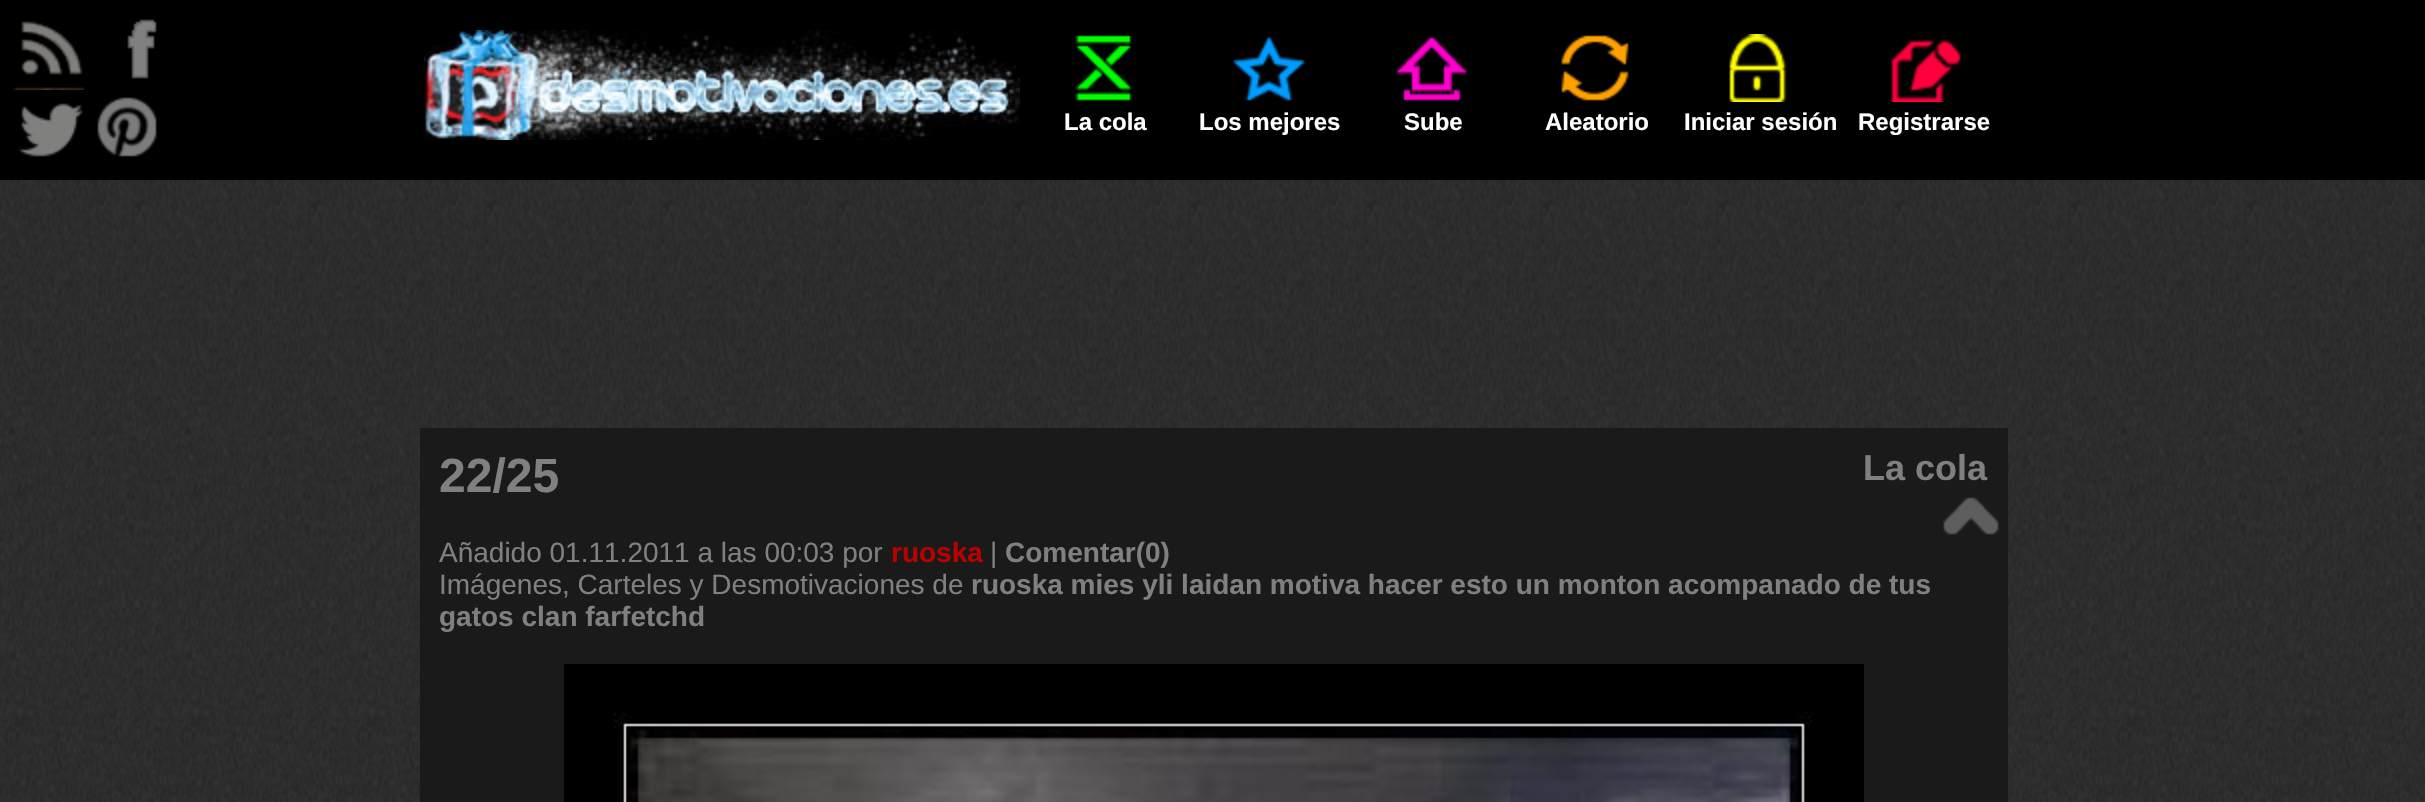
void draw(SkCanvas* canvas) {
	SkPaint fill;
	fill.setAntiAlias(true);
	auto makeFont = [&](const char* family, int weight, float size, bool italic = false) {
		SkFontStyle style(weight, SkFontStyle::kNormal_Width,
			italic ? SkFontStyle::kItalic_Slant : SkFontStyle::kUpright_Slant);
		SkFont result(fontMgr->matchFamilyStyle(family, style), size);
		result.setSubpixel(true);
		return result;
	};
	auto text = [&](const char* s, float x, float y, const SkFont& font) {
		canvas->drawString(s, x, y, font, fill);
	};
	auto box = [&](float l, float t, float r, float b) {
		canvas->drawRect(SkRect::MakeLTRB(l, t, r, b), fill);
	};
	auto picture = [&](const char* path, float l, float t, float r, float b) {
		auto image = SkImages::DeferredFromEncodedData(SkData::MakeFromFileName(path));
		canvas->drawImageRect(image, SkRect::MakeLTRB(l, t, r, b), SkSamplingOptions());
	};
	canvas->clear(0xFFFFFFFF);
	picture("image0.png", 0, 180, 2425, 802);
	fill.setColor(0xFF000000);
	box(0, 0, 2425, 180);
	picture("image1.png", 13, 21, 85, 90);
	picture("image2.png", 127, 19, 157, 79);
	picture("image3.png", 19, 103, 83, 157);
	picture("image4.png", 97, 97, 157, 157);
	picture("image5.png", 424, 30, 1020, 140);
	picture("image6.png", 1075, 35, 1133, 101);
	picture("image7.png", 1232, 35, 1305, 101);
	picture("image8.png", 1396, 35, 1467, 101);
	picture("image9.png", 1561, 35, 1629, 101);
	picture("image10.png", 1729, 34, 1787, 102);
	picture("image11.png", 1891, 39, 1961, 102);
	fill.setColor(0xFF1A1A1A);
	box(420, 428, 2008, 802);
	picture("image12.png", 564, 664, 1864, 802);
	picture("image13.png", 1943, 497, 1999, 535);
	auto font1 = makeFont("Liberation Sans", 700, 24);
	fill.setColor(0xFFFFFFFF);
	text("La cola", 1064, 130, font1);
	text("Los mejores", 1199, 130, font1);
	text("Sube", 1404, 130, font1);
	text("Aleatorio", 1545, 130, font1);
	text("Iniciar sesión", 1684, 130, font1);
	text("Registrarse", 1858, 130, font1);
	auto font2 = makeFont("Liberation Sans", 700, 48);
	fill.setColor(0xFF808080);
	text("22/25", 439, 492, font2);
	auto font3 = makeFont("Liberation Sans", 700, 36);
	text("La cola", 1863, 480, font3);
	auto font4 = makeFont("Liberation Sans", 400, 28);
	text("Añadido 01.11.2011 a las 00:03 por", 439, 562, font4);
	auto font5 = makeFont("Liberation Sans", 700, 28);
	fill.setColor(0xFFBB0000);
	text("ruoska", 891, 562, font5);
	fill.setColor(0xFF808080);
	text("|", 990, 562, font4);
	text("Comentar(0)", 1005, 562, font5);
	text("Imágenes, Carteles y Desmotivaciones de", 439, 594, font4);
	text("ruoska mies yli laidan motiva hacer esto un monton acompanado de tus", 971, 594, font5);
	text("gatos clan farfetchd", 439, 626, font5);
}
